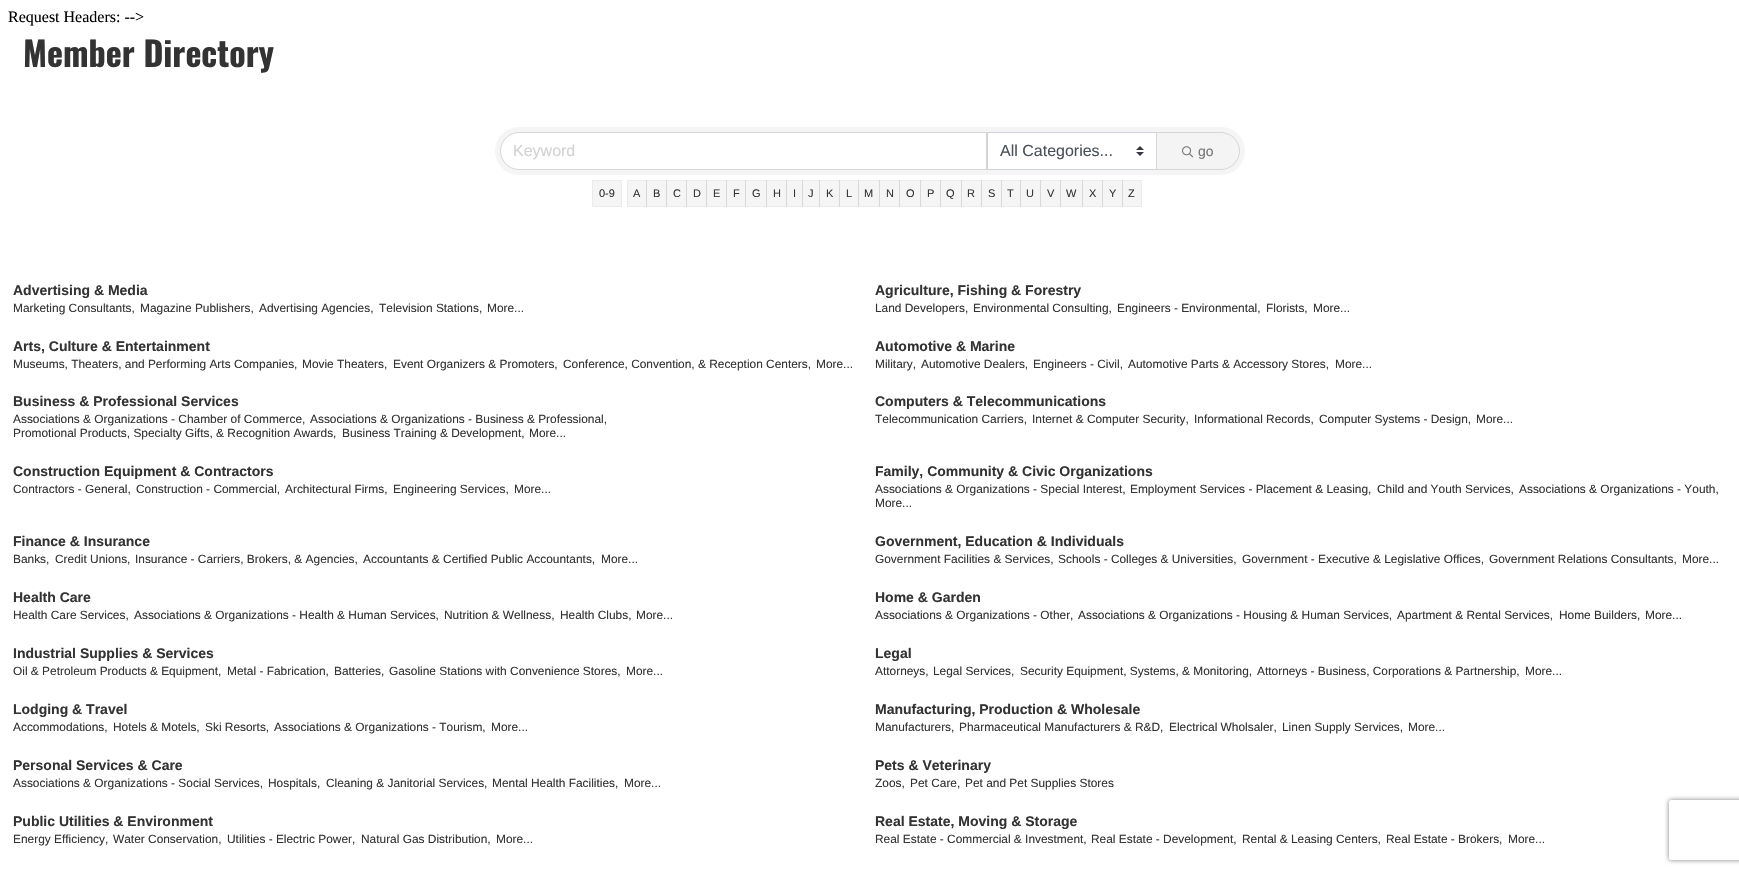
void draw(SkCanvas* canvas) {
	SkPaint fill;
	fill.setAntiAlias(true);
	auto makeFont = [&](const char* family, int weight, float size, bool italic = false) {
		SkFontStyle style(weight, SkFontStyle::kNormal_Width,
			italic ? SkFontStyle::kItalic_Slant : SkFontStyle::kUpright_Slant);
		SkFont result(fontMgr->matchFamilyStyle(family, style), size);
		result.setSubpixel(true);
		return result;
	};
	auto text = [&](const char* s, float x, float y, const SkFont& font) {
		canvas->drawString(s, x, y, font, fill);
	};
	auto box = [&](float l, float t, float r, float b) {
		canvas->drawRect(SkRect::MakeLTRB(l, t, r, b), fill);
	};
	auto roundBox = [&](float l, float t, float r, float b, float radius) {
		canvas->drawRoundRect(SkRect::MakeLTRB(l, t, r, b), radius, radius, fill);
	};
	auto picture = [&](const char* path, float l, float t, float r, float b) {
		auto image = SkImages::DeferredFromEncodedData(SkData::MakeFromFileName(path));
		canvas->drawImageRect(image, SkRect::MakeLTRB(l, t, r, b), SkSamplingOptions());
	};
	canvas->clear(0xFFFFFFFF);
	fill.setColor(0xFFF5F5F5);
	roundBox(495, 127, 1245, 175, 24);
	fill.setColor(0xFFFFFFFF);
	canvas->drawPath(SkPathBuilder().moveTo(519, 133).lineTo(986, 133).lineTo(986, 169).lineTo(519, 169).cubicTo(509, 169, 501, 161, 501, 151).cubicTo(501, 141, 509, 133, 519, 133).close().detach(), fill);
	fill.setStyle(SkPaint::kStroke_Style);
	fill.setStrokeWidth(1);
	fill.setColor(0x1F000000);
	canvas->drawPath(SkPathBuilder().moveTo(519, 132.5f).lineTo(986.5f, 132.5f).lineTo(986.5f, 169.5f).lineTo(519, 169.5f).cubicTo(509, 169.5f, 500.5f, 161, 500.5f, 151).cubicTo(500.5f, 141, 509, 132.5f, 519, 132.5f).close().detach(), fill);
	fill.setStyle(SkPaint::kFill_Style);
	fill.setColor(0xFFFFFFFF);
	box(988, 133, 1156, 169);
	picture("image0.png", 1136, 146, 1144, 156);
	fill.setStyle(SkPaint::kStroke_Style);
	fill.setColor(0xFFCED4DA);
	canvas->drawRect(SkRect::MakeLTRB(987.5f, 132.5f, 1156.5f, 169.5f), fill);
	fill.setStyle(SkPaint::kFill_Style);
	fill.setColor(0xFFF4F4F4);
	canvas->drawPath(SkPathBuilder().moveTo(1156.5f, 132.5f).lineTo(1221, 132.5f).cubicTo(1231, 132.5f, 1239.5f, 141, 1239.5f, 151).cubicTo(1239.5f, 161, 1231, 169.5f, 1221, 169.5f).lineTo(1156.5f, 169.5f).close().detach(), fill);
	fill.setStyle(SkPaint::kStroke_Style);
	fill.setColor(0xFFD6D6D6);
	canvas->drawPath(SkPathBuilder().moveTo(1156.5f, 132.5f).lineTo(1221, 132.5f).cubicTo(1231, 132.5f, 1239.5f, 141, 1239.5f, 151).cubicTo(1239.5f, 161, 1231, 169.5f, 1221, 169.5f).lineTo(1156.5f, 169.5f).close().detach(), fill);
	picture("image1.png", 1182, 146, 1194, 158);
	fill.setStyle(SkPaint::kFill_Style);
	fill.setColor(0xFFF5F5F5);
	canvas->drawRect(SkRect::MakeLTRB(592.5f, 180.5f, 621.5f, 206.5f), fill);
	fill.setStyle(SkPaint::kStroke_Style);
	fill.setColor(0xFFEBEBEB);
	canvas->drawRect(SkRect::MakeLTRB(592.5f, 180.5f, 621.5f, 206.5f), fill);
	fill.setStyle(SkPaint::kFill_Style);
	fill.setColor(0xFFF5F5F5);
	canvas->drawRect(SkRect::MakeLTRB(627.5f, 180.5f, 646.5f, 206.5f), fill);
	fill.setStyle(SkPaint::kStroke_Style);
	fill.setColor(0xFFEBEBEB);
	canvas->drawRect(SkRect::MakeLTRB(627.5f, 180.5f, 646.5f, 206.5f), fill);
	fill.setStyle(SkPaint::kFill_Style);
	fill.setColor(0x0A000000);
	box(646, 180, 667, 207);
	fill.setStyle(SkPaint::kStroke_Style);
	canvas->drawRect(SkRect::MakeLTRB(646.5f, 180.5f, 666.5f, 206.5f), fill);
	fill.setStyle(SkPaint::kFill_Style);
	box(666, 180, 687, 207);
	fill.setStyle(SkPaint::kStroke_Style);
	canvas->drawRect(SkRect::MakeLTRB(666.5f, 180.5f, 686.5f, 206.5f), fill);
	fill.setStyle(SkPaint::kFill_Style);
	box(686, 180, 707, 207);
	fill.setStyle(SkPaint::kStroke_Style);
	canvas->drawRect(SkRect::MakeLTRB(686.5f, 180.5f, 706.5f, 206.5f), fill);
	fill.setStyle(SkPaint::kFill_Style);
	box(706, 180, 727, 207);
	fill.setStyle(SkPaint::kStroke_Style);
	canvas->drawRect(SkRect::MakeLTRB(706.5f, 180.5f, 726.5f, 206.5f), fill);
	fill.setStyle(SkPaint::kFill_Style);
	box(726, 180, 746, 207);
	fill.setStyle(SkPaint::kStroke_Style);
	canvas->drawRect(SkRect::MakeLTRB(726.5f, 180.5f, 745.5f, 206.5f), fill);
	fill.setStyle(SkPaint::kFill_Style);
	box(745, 180, 767, 207);
	fill.setStyle(SkPaint::kStroke_Style);
	canvas->drawRect(SkRect::MakeLTRB(745.5f, 180.5f, 766.5f, 206.5f), fill);
	fill.setStyle(SkPaint::kFill_Style);
	box(766, 180, 787, 207);
	fill.setStyle(SkPaint::kStroke_Style);
	canvas->drawRect(SkRect::MakeLTRB(766.5f, 180.5f, 786.5f, 206.5f), fill);
	fill.setStyle(SkPaint::kFill_Style);
	box(786, 180, 803, 207);
	fill.setStyle(SkPaint::kStroke_Style);
	canvas->drawRect(SkRect::MakeLTRB(786.5f, 180.5f, 802.5f, 206.5f), fill);
	fill.setStyle(SkPaint::kFill_Style);
	box(802, 180, 820, 207);
	fill.setStyle(SkPaint::kStroke_Style);
	canvas->drawRect(SkRect::MakeLTRB(802.5f, 180.5f, 819.5f, 206.5f), fill);
	fill.setStyle(SkPaint::kFill_Style);
	box(819, 180, 840, 207);
	fill.setStyle(SkPaint::kStroke_Style);
	canvas->drawRect(SkRect::MakeLTRB(819.5f, 180.5f, 839.5f, 206.5f), fill);
	fill.setStyle(SkPaint::kFill_Style);
	box(839, 180, 859, 207);
	fill.setStyle(SkPaint::kStroke_Style);
	canvas->drawRect(SkRect::MakeLTRB(839.5f, 180.5f, 858.5f, 206.5f), fill);
	fill.setStyle(SkPaint::kFill_Style);
	box(858, 180, 880, 207);
	fill.setStyle(SkPaint::kStroke_Style);
	canvas->drawRect(SkRect::MakeLTRB(858.5f, 180.5f, 879.5f, 206.5f), fill);
	fill.setStyle(SkPaint::kFill_Style);
	box(879, 180, 900, 207);
	fill.setStyle(SkPaint::kStroke_Style);
	canvas->drawRect(SkRect::MakeLTRB(879.5f, 180.5f, 899.5f, 206.5f), fill);
	fill.setStyle(SkPaint::kFill_Style);
	box(899, 180, 921, 207);
	fill.setStyle(SkPaint::kStroke_Style);
	canvas->drawRect(SkRect::MakeLTRB(899.5f, 180.5f, 920.5f, 206.5f), fill);
	fill.setStyle(SkPaint::kFill_Style);
	box(920, 180, 941, 207);
	fill.setStyle(SkPaint::kStroke_Style);
	canvas->drawRect(SkRect::MakeLTRB(920.5f, 180.5f, 940.5f, 206.5f), fill);
	fill.setStyle(SkPaint::kFill_Style);
	box(940, 180, 962, 207);
	fill.setStyle(SkPaint::kStroke_Style);
	canvas->drawRect(SkRect::MakeLTRB(940.5f, 180.5f, 961.5f, 206.5f), fill);
	fill.setStyle(SkPaint::kFill_Style);
	box(961, 180, 982, 207);
	fill.setStyle(SkPaint::kStroke_Style);
	canvas->drawRect(SkRect::MakeLTRB(961.5f, 180.5f, 981.5f, 206.5f), fill);
	fill.setStyle(SkPaint::kFill_Style);
	box(981, 180, 1002, 207);
	fill.setStyle(SkPaint::kStroke_Style);
	canvas->drawRect(SkRect::MakeLTRB(981.5f, 180.5f, 1001.5f, 206.5f), fill);
	fill.setStyle(SkPaint::kFill_Style);
	box(1001, 180, 1021, 207);
	fill.setStyle(SkPaint::kStroke_Style);
	canvas->drawRect(SkRect::MakeLTRB(1001.5f, 180.5f, 1020.5f, 206.5f), fill);
	fill.setStyle(SkPaint::kFill_Style);
	box(1020, 180, 1041, 207);
	fill.setStyle(SkPaint::kStroke_Style);
	canvas->drawRect(SkRect::MakeLTRB(1020.5f, 180.5f, 1040.5f, 206.5f), fill);
	fill.setStyle(SkPaint::kFill_Style);
	box(1040, 180, 1061, 207);
	fill.setStyle(SkPaint::kStroke_Style);
	canvas->drawRect(SkRect::MakeLTRB(1040.5f, 180.5f, 1060.5f, 206.5f), fill);
	fill.setStyle(SkPaint::kFill_Style);
	box(1060, 180, 1083, 207);
	fill.setStyle(SkPaint::kStroke_Style);
	canvas->drawRect(SkRect::MakeLTRB(1060.5f, 180.5f, 1082.5f, 206.5f), fill);
	fill.setStyle(SkPaint::kFill_Style);
	box(1082, 180, 1103, 207);
	fill.setStyle(SkPaint::kStroke_Style);
	canvas->drawRect(SkRect::MakeLTRB(1082.5f, 180.5f, 1102.5f, 206.5f), fill);
	fill.setStyle(SkPaint::kFill_Style);
	box(1102, 180, 1123, 207);
	fill.setStyle(SkPaint::kStroke_Style);
	canvas->drawRect(SkRect::MakeLTRB(1102.5f, 180.5f, 1122.5f, 206.5f), fill);
	fill.setStyle(SkPaint::kFill_Style);
	box(1122, 180, 1142, 207);
	fill.setStyle(SkPaint::kStroke_Style);
	canvas->drawRect(SkRect::MakeLTRB(1122.5f, 180.5f, 1141.5f, 206.5f), fill);
	canvas->save();
	canvas->clipPath(SkPathBuilder(SkPathFillType::kEvenOdd).moveTo(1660, 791).lineTo(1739, 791).lineTo(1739, 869).lineTo(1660, 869).close().moveTo(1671, 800).lineTo(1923, 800).cubicTo(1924, 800, 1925, 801, 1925, 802).lineTo(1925, 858).cubicTo(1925, 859, 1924, 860, 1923, 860).lineTo(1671, 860).cubicTo(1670, 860, 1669, 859, 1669, 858).lineTo(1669, 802).cubicTo(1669, 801, 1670, 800, 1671, 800).close().detach(), true);
	fill.setStyle(SkPaint::kFill_Style);
	fill.setColor(0xFF808080);
	fill.setMaskFilter(SkMaskFilter::MakeBlur(kNormal_SkBlurStyle, 2.5f));
	canvas->drawRoundRect(SkRect::MakeLTRB(1669, 800, 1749, 860), 2, 2, fill);
	fill.setMaskFilter(nullptr);
	canvas->restore();
	auto font1 = makeFont("Liberation Serif", 400, 16);
	fill.setColor(0xFF000000);
	text("Request Headers: -->", 8, 22, font1);
	auto font2 = makeFont("Oswald", 700, 34);
	fill.setColor(0xFF333333);
	text("Member Directory", 23, 67, font2);
	auto font3 = makeFont("Liberation Sans", 400, 16);
	fill.setColor(0xFFD2D2D2);
	text("Keyword", 513, 156, font3);
	fill.setColor(0xFF495057);
	text("All Categories...", 1000, 156, font3);
	auto font4 = makeFont("Liberation Sans", 400, 14);
	fill.setColor(0xFF777777);
	text("go", 1198, 156, font4);
	auto font5 = makeFont("Liberation Sans", 400, 11);
	fill.setColor(0xFF333333);
	text("0-9", 599, 197, font5);
	text("A", 633, 197, font5);
	text("B", 653, 197, font5);
	text("C", 673, 197, font5);
	text("D", 693, 197, font5);
	text("E", 713, 197, font5);
	text("F", 733, 197, font5);
	text("G", 752, 197, font5);
	text("H", 773, 197, font5);
	text("I", 793, 197, font5);
	text("J", 808, 197, font5);
	text("K", 826, 197, font5);
	text("L", 846, 197, font5);
	text("M", 864, 197, font5);
	text("N", 886, 197, font5);
	text("O", 906, 197, font5);
	text("P", 927, 197, font5);
	text("Q", 946, 197, font5);
	text("R", 967, 197, font5);
	text("S", 988, 197, font5);
	text("T", 1007, 197, font5);
	text("U", 1026, 197, font5);
	text("V", 1047, 197, font5);
	text("W", 1066, 197, font5);
	text("X", 1089, 197, font5);
	text("Y", 1109, 197, font5);
	text("Z", 1128, 197, font5);
	auto font6 = makeFont("Liberation Sans", 700, 14);
	text("Advertising & Media", 13, 295, font6);
	auto font7 = makeFont("Liberation Sans", 400, 11.9f);
	text("Marketing Consultants,", 13, 312, font7);
	text("Magazine Publishers,", 140, 312, font7);
	text("Advertising Agencies,", 259, 312, font7);
	text("Television Stations,", 379, 312, font7);
	text("More...", 487, 312, font7);
	text("Agriculture, Fishing & Forestry", 875, 295, font6);
	text("Land Developers,", 875, 312, font7);
	text("Environmental Consulting,", 973, 312, font7);
	text("Engineers - Environmental,", 1117, 312, font7);
	text("Florists,", 1266, 312, font7);
	text("More...", 1313, 312, font7);
	text("Arts, Culture & Entertainment", 13, 351, font6);
	text("Museums, Theaters, and Performing Arts Companies,", 13, 368, font7);
	text("Movie Theaters,", 302, 368, font7);
	text("Event Organizers & Promoters,", 393, 368, font7);
	text("Conference, Convention, & Reception Centers,", 563, 368, font7);
	text("More...", 816, 368, font7);
	text("Automotive & Marine", 875, 351, font6);
	text("Military,", 875, 368, font7);
	text("Automotive Dealers,", 921, 368, font7);
	text("Engineers - Civil,", 1033, 368, font7);
	text("Automotive Parts & Accessory Stores,", 1128, 368, font7);
	text("More...", 1335, 368, font7);
	text("Business & Professional Services", 13, 406, font6);
	text("Associations & Organizations - Chamber of Commerce,", 13, 423, font7);
	text("Associations & Organizations - Business & Professional,", 310, 423, font7);
	text("Promotional Products, Specialty Gifts, & Recognition Awards,", 13, 437, font7);
	text("Business Training & Development,", 342, 437, font7);
	text("More...", 529, 437, font7);
	text("Computers & Telecommunications", 875, 406, font6);
	text("Telecommunication Carriers,", 875, 423, font7);
	text("Internet & Computer Security,", 1032, 423, font7);
	text("Informational Records,", 1194, 423, font7);
	text("Computer Systems - Design,", 1319, 423, font7);
	text("More...", 1476, 423, font7);
	text("Construction Equipment & Contractors", 13, 476, font6);
	text("Contractors - General,", 13, 493, font7);
	text("Construction - Commercial,", 136, 493, font7);
	text("Architectural Firms,", 285, 493, font7);
	text("Engineering Services,", 393, 493, font7);
	text("More...", 514, 493, font7);
	text("Family, Community & Civic Organizations", 875, 476, font6);
	text("Associations & Organizations - Special Interest,", 875, 493, font7);
	text("Employment Services - Placement & Leasing,", 1130, 493, font7);
	text("Child and Youth Services,", 1377, 493, font7);
	text("Associations & Organizations - Youth,", 1519, 493, font7);
	text("More...", 875, 507, font7);
	text("Finance & Insurance", 13, 546, font6);
	text("Banks,", 13, 563, font7);
	text("Credit Unions,", 55, 563, font7);
	text("Insurance - Carriers, Brokers, & Agencies,", 135, 563, font7);
	text("Accountants & Certified Public Accountants,", 363, 563, font7);
	text("More...", 601, 563, font7);
	text("Government, Education & Individuals", 875, 546, font6);
	text("Government Facilities & Services,", 875, 563, font7);
	text("Schools - Colleges & Universities,", 1058, 563, font7);
	text("Government - Executive & Legislative Offices,", 1242, 563, font7);
	text("Government Relations Consultants,", 1489, 563, font7);
	text("More...", 1682, 563, font7);
	text("Health Care", 13, 602, font6);
	text("Health Care Services,", 13, 619, font7);
	text("Associations & Organizations - Health & Human Services,", 134, 619, font7);
	text("Nutrition & Wellness,", 444, 619, font7);
	text("Health Clubs,", 560, 619, font7);
	text("More...", 636, 619, font7);
	text("Home & Garden", 875, 602, font6);
	text("Associations & Organizations - Other,", 875, 619, font7);
	text("Associations & Organizations - Housing & Human Services,", 1078, 619, font7);
	text("Apartment & Rental Services,", 1397, 619, font7);
	text("Home Builders,", 1559, 619, font7);
	text("More...", 1645, 619, font7);
	text("Industrial Supplies & Services", 13, 658, font6);
	text("Oil & Petroleum Products & Equipment,", 13, 675, font7);
	text("Metal - Fabrication,", 227, 675, font7);
	text("Batteries,", 334, 675, font7);
	text("Gasoline Stations with Convenience Stores,", 389, 675, font7);
	text("More...", 626, 675, font7);
	text("Legal", 875, 658, font6);
	text("Attorneys,", 875, 675, font7);
	text("Legal Services,", 933, 675, font7);
	text("Security Equipment, Systems, & Monitoring,", 1020, 675, font7);
	text("Attorneys - Business, Corporations & Partnership,", 1257, 675, font7);
	text("More...", 1525, 675, font7);
	text("Lodging & Travel", 13, 714, font6);
	text("Accommodations,", 13, 731, font7);
	text("Hotels & Motels,", 113, 731, font7);
	text("Ski Resorts,", 205, 731, font7);
	text("Associations & Organizations - Tourism,", 274, 731, font7);
	text("More...", 491, 731, font7);
	text("Manufacturing, Production & Wholesale", 875, 714, font6);
	text("Manufacturers,", 875, 731, font7);
	text("Pharmaceutical Manufacturers & R&D,", 959, 731, font7);
	text("Electrical Wholsaler,", 1169, 731, font7);
	text("Linen Supply Services,", 1282, 731, font7);
	text("More...", 1408, 731, font7);
	text("Personal Services & Care", 13, 770, font6);
	text("Associations & Organizations - Social Services,", 13, 787, font7);
	text("Hospitals,", 268, 787, font7);
	text("Cleaning & Janitorial Services,", 326, 787, font7);
	text("Mental Health Facilities,", 492, 787, font7);
	text("More...", 624, 787, font7);
	text("Pets & Veterinary", 875, 770, font6);
	text("Zoos,", 875, 787, font7);
	text("Pet Care,", 910, 787, font7);
	text("Pet and Pet Supplies Stores", 965, 787, font7);
	text("Public Utilities & Environment", 13, 826, font6);
	text("Energy Efficiency,", 13, 843, font7);
	text("Water Conservation,", 113, 843, font7);
	text("Utilities - Electric Power,", 227, 843, font7);
	text("Natural Gas Distribution,", 361, 843, font7);
	text("More...", 496, 843, font7);
	text("Real Estate, Moving & Storage", 875, 826, font6);
	text("Real Estate - Commercial & Investment,", 875, 843, font7);
	text("Real Estate - Development,", 1091, 843, font7);
	text("Rental & Leasing Centers,", 1242, 843, font7);
	text("Real Estate - Brokers,", 1386, 843, font7);
	text("More...", 1508, 843, font7);
}
